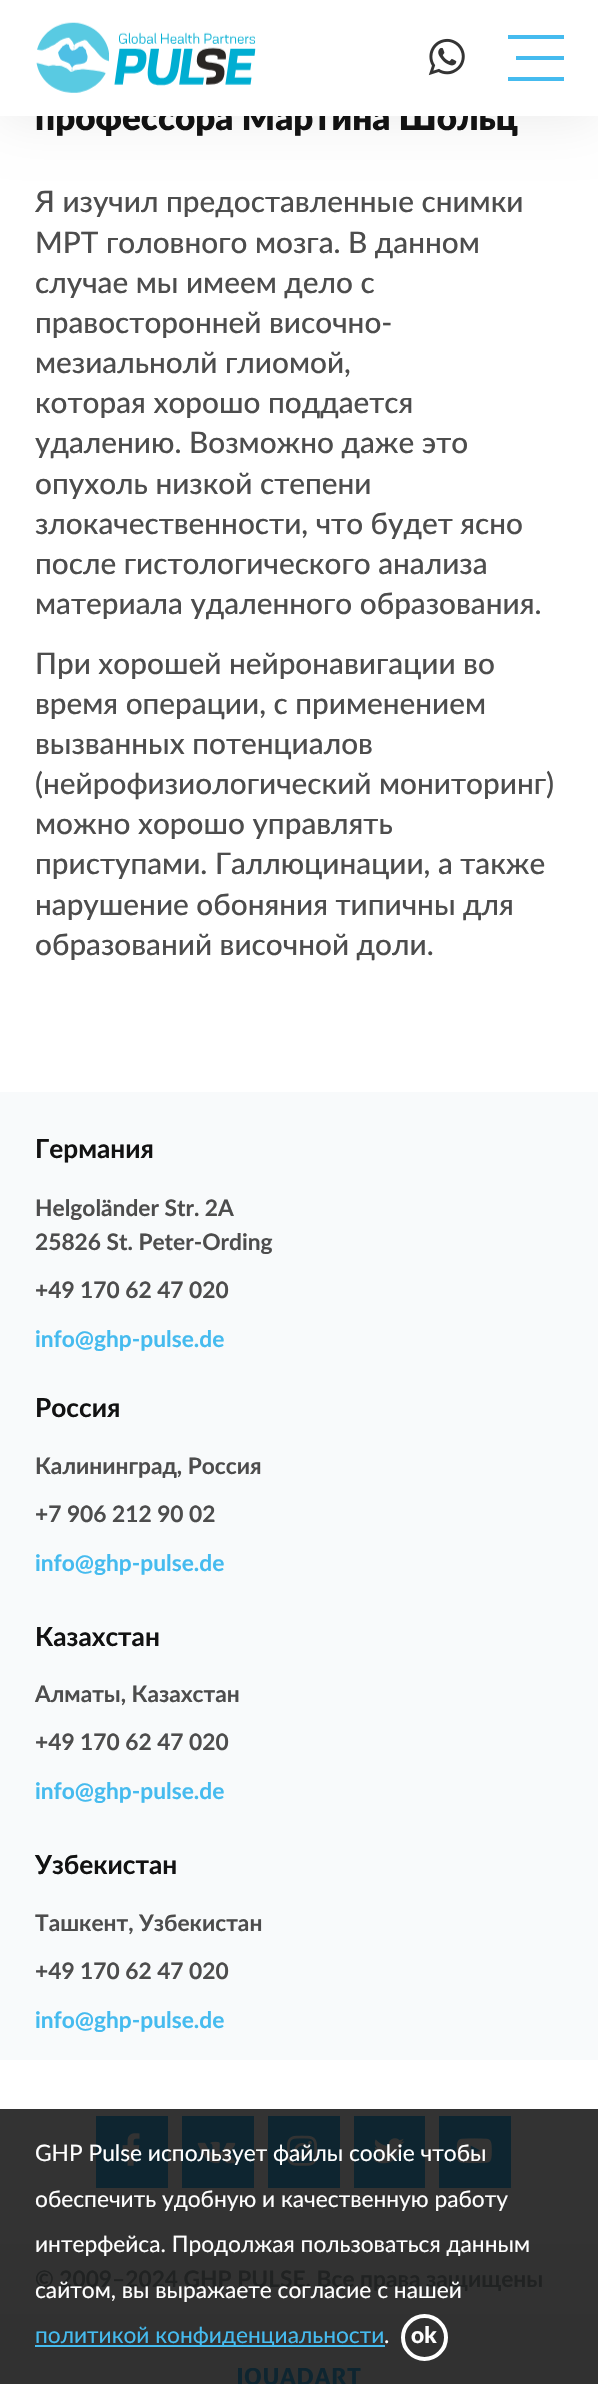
void draw(SkCanvas* canvas) {
	SkPaint fill;
	fill.setAntiAlias(true);
	auto makeFont = [&](const char* family, int weight, float size, bool italic = false) {
		SkFontStyle style(weight, SkFontStyle::kNormal_Width,
			italic ? SkFontStyle::kItalic_Slant : SkFontStyle::kUpright_Slant);
		SkFont result(fontMgr->matchFamilyStyle(family, style), size);
		result.setSubpixel(true);
		return result;
	};
	auto text = [&](const char* s, float x, float y, const SkFont& font) {
		canvas->drawString(s, x, y, font, fill);
	};
	auto box = [&](float l, float t, float r, float b) {
		canvas->drawRect(SkRect::MakeLTRB(l, t, r, b), fill);
	};
	auto picture = [&](const char* path, float l, float t, float r, float b) {
		auto image = SkImages::DeferredFromEncodedData(SkData::MakeFromFileName(path));
		canvas->drawImageRect(image, SkRect::MakeLTRB(l, t, r, b), SkSamplingOptions());
	};
	canvas->clear(0xFFFFFFFF);
	fill.setColor(0xFF333333);
	box(0, 2109, 598, 2244);
	fill.setColor(0x14000101);
	fill.setMaskFilter(SkMaskFilter::MakeBlur(kNormal_SkBlurStyle, 26));
	canvas->drawRect(SkRect::MakeLTRB(0, 4, 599, 119), fill);
	fill.setMaskFilter(nullptr);
	fill.setColor(0xFFF8FAFB);
	box(0, 1092, 598, 2060);
	fill.setColor(0xFF0E2530);
	box(96, 2116, 168, 2188);
	picture("image2.png", 122, 2133, 140, 2166);
	box(182, 2116, 254, 2188);
	picture("image3.png", 197, 2141, 236, 2164);
	box(268, 2116, 340, 2188);
	picture("image4.png", 287, 2135, 317, 2166);
	box(354, 2116, 425, 2188);
	picture("image5.png", 373, 2138, 405, 2164);
	box(439, 2116, 511, 2188);
	picture("image6.png", 456, 2138, 492, 2164);
	fill.setColor(0xFF323232);
	box(0, 2244, 598, 2314);
	fill.setColor(0xFF313131);
	box(0, 2314, 598, 2384);
	picture("image7.png", 238, 2368, 361, 2384);
	fill.setColor(0xFF45BBEF);
	box(35, 2345, 385, 2347);
	fill.setStyle(SkPaint::kStroke_Style);
	fill.setStrokeWidth(4);
	fill.setColor(0xFFFFFFFF);
	canvas->drawCircle(424.5f, 2337.5f, 21.5f, fill);
	auto font1 = makeFont("Lato", 900, 35);
	fill.setStyle(SkPaint::kFill_Style);
	fill.setColor(0xFF121212);
	text("профессора Мартина Шольц", 35, 130, font1);
	fill.setColor(0xFFFFFFFF);
	box(0, 0, 598, 116);
	fill.setColor(0xFF45BBEF);
	box(508, 77, 564, 81);
	box(516, 56, 564, 60);
	box(508, 35, 564, 39);
	picture("image0.png", 36, 22, 256, 93);
	picture("image1.png", 428, 38, 465, 76);
	auto font2 = makeFont("Lato", 500, 29.75f);
	fill.setColor(0xFF4D4D4D);
	text("Я изучил предоставленные снимки", 35, 212, font2);
	text("МРТ головного мозга. В данном", 35, 253, font2);
	text("случае мы имеем дело с", 35, 293, font2);
	text("правосторонней височно-", 35, 333, font2);
	text("мезиальнолй глиомой,", 35, 373, font2);
	text("которая хорошо поддается", 35, 413, font2);
	text("удалению. Возможно даже это", 35, 453, font2);
	text("опухоль низкой степени", 35, 494, font2);
	text("злокачественности, что будет ясно", 35, 534, font2);
	text("после гистологического анализа", 35, 574, font2);
	text("материала удаленного образования.", 35, 614, font2);
	text("При хорошей нейронавигации во", 35, 674, font2);
	text("время операции, с применением", 35, 714, font2);
	text("вызванных потенциалов", 35, 754, font2);
	text("(нейрофизиологический мониторинг)", 35, 794, font2);
	text("можно хорошо управлять", 35, 834, font2);
	text("приступами. Галлюцинации, а также", 35, 874, font2);
	text("нарушение обоняния типичны для", 35, 915, font2);
	text("образований височной доли.", 35, 955, font2);
	auto font3 = makeFont("Lato", 700, 26.25f);
	fill.setColor(0xFF121212);
	text("Германия", 35, 1158, font3);
	auto font4 = makeFont("Lato", 700, 22.75f);
	fill.setColor(0xFF4D4D4D);
	text("Helgoländer Str. 2A", 35, 1216, font4);
	text("25826 St. Peter-Ording", 35, 1250, font4);
	text("+49 170 62 47 020", 35, 1298, font4);
	fill.setColor(0xFF45BBEF);
	text("info@ghp-pulse.de", 35, 1347, font4);
	fill.setColor(0xFF121212);
	text("Россия", 35, 1417, font3);
	fill.setColor(0xFF4D4D4D);
	text("Калининград, Россия", 35, 1474, font4);
	text("+7 906 212 90 02", 35, 1522, font4);
	fill.setColor(0xFF45BBEF);
	text("info@ghp-pulse.de", 35, 1571, font4);
	fill.setColor(0xFF121212);
	text("Казахстан", 35, 1646, font3);
	fill.setColor(0xFF4D4D4D);
	text("Алматы, Казахстан", 35, 1702, font4);
	text("+49 170 62 47 020", 35, 1750, font4);
	fill.setColor(0xFF45BBEF);
	text("info@ghp-pulse.de", 35, 1799, font4);
	fill.setColor(0xFF121212);
	text("Узбекистан", 35, 1874, font3);
	fill.setColor(0xFF4D4D4D);
	text("Ташкент, Узбекистан", 35, 1931, font4);
	text("+49 170 62 47 020", 35, 1979, font4);
	fill.setColor(0xFF45BBEF);
	text("info@ghp-pulse.de", 35, 2028, font4);
	fill.setColor(0xFF202222);
	text("© 2009–2024 GHP PULSE. Все права защищены", 35, 2287, font4);
	auto font5 = makeFont("Lato", 400, 22.75f);
	fill.setColor(0xFFFFFFFF);
	text("GHP Pulse использует файлы cookie чтобы", 35, 2161, font5);
	text("обеспечить удобную и качественную работу", 35, 2207, font5);
	text("интерфейса. Продолжая пользоваться данным", 35, 2252, font5);
	text("сайтом, вы выражаете согласие с нашей", 35, 2298, font5);
	fill.setColor(0xFF45BBEF);
	text("политикой конфиденциальности", 35, 2343, font5);
	fill.setColor(0xFFFFFFFF);
	text(".", 384, 2343, font5);
	auto font6 = makeFont("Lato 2", 900, 22.75f);
	text("ok", 411, 2343, font6);
}
